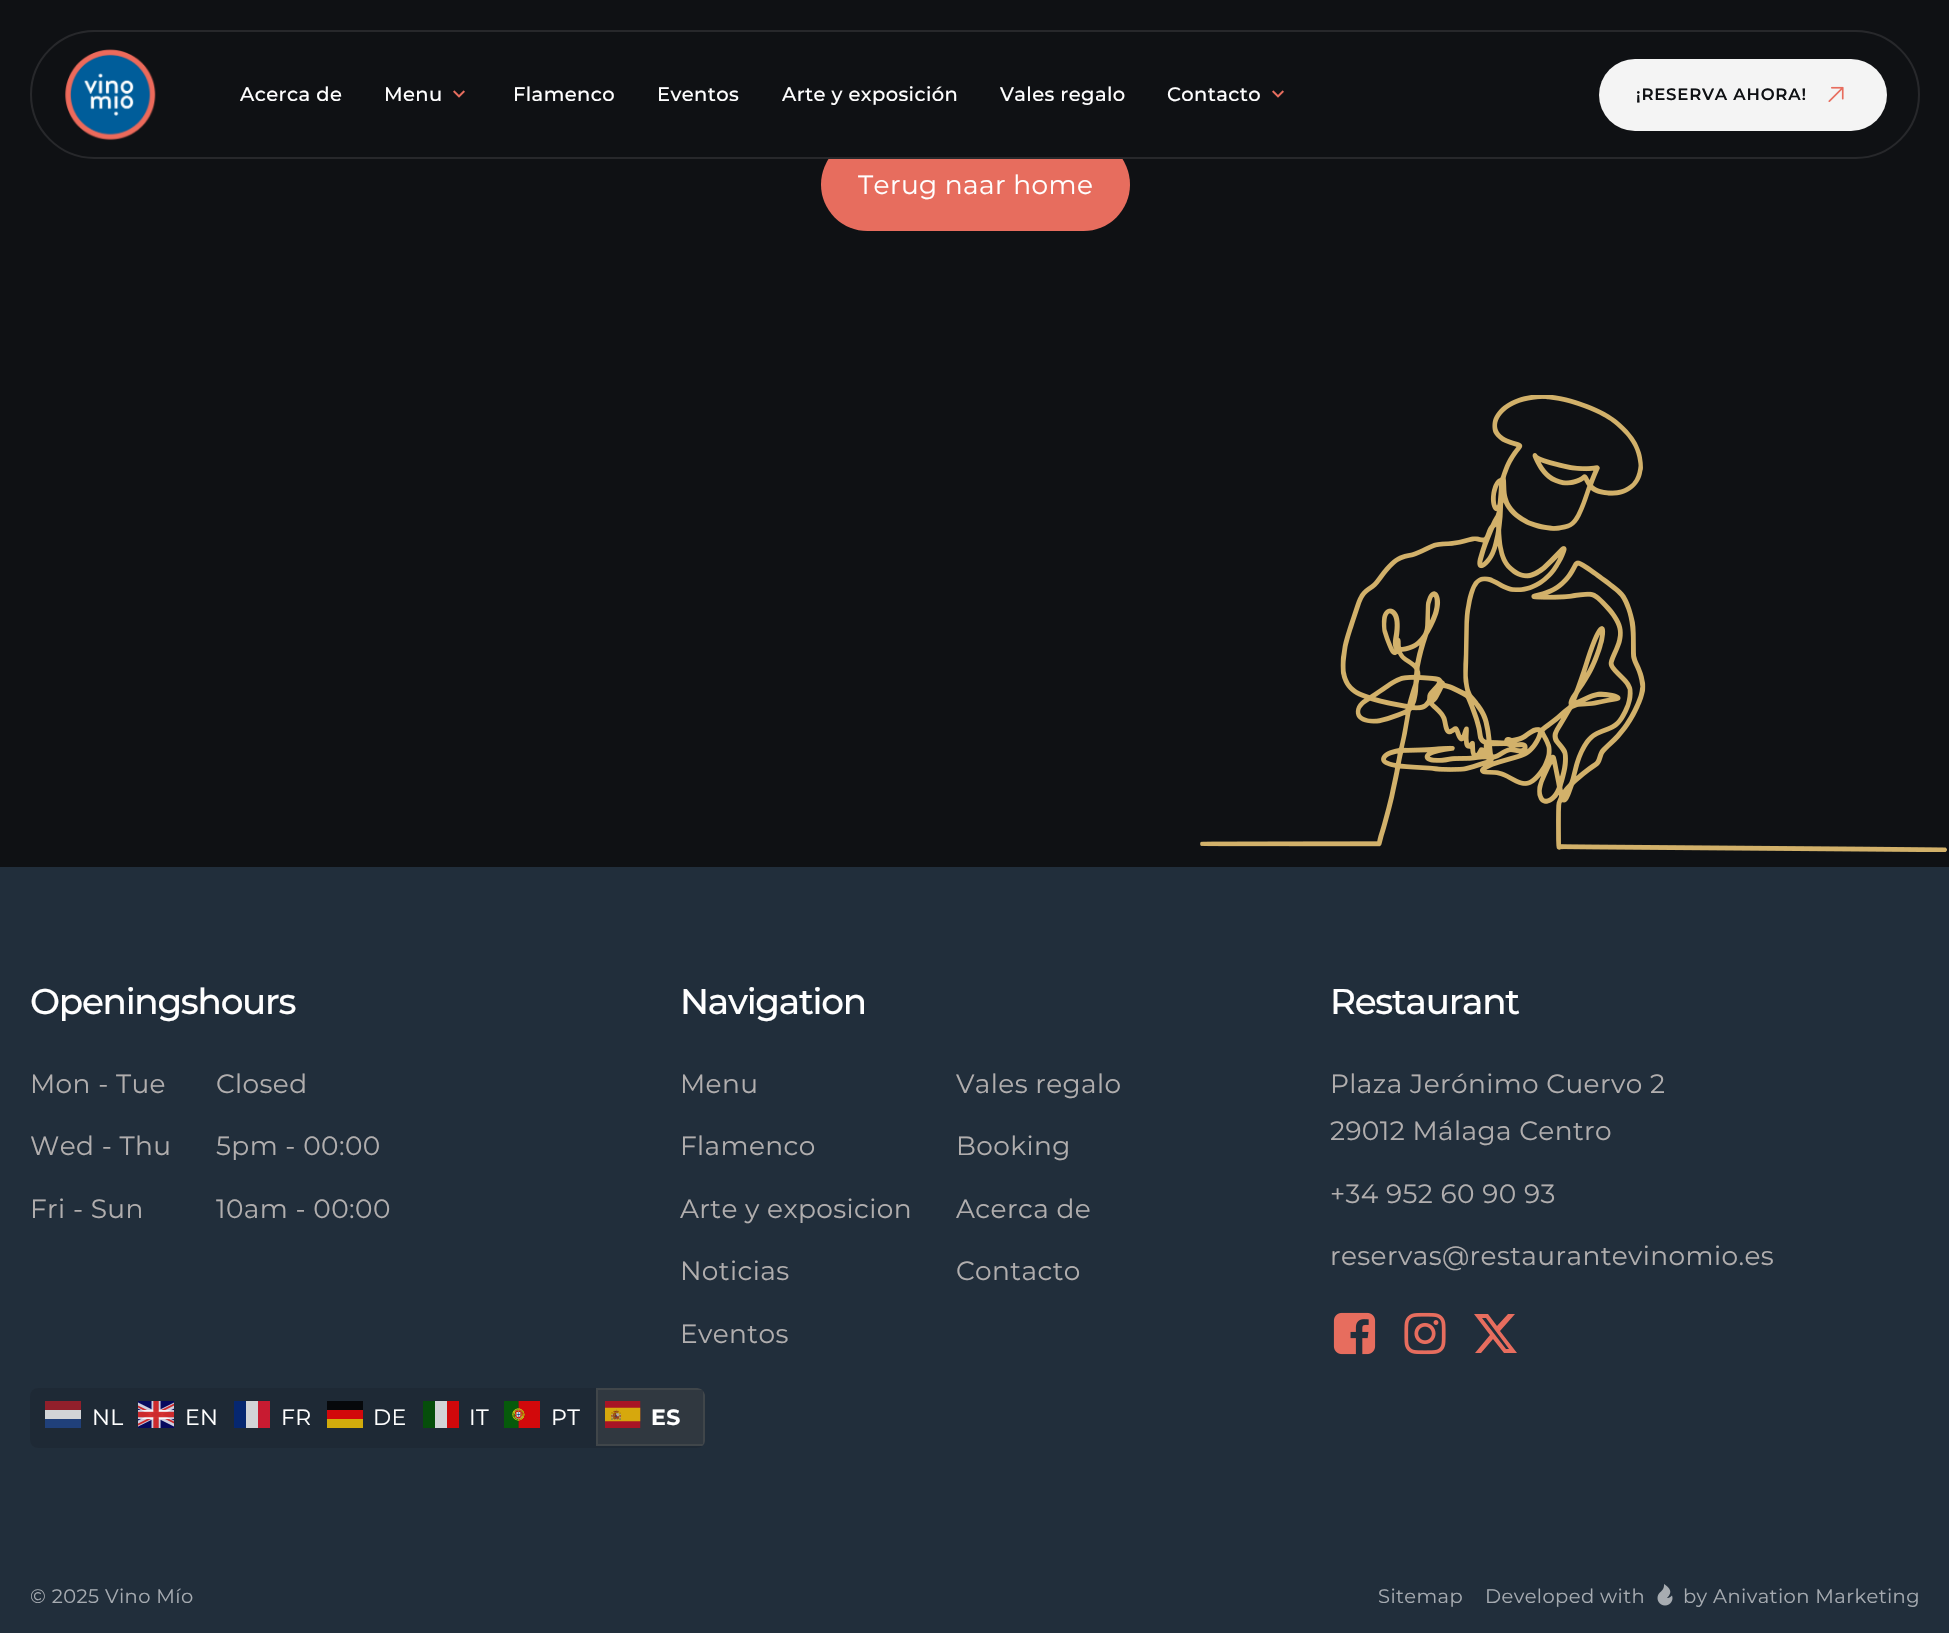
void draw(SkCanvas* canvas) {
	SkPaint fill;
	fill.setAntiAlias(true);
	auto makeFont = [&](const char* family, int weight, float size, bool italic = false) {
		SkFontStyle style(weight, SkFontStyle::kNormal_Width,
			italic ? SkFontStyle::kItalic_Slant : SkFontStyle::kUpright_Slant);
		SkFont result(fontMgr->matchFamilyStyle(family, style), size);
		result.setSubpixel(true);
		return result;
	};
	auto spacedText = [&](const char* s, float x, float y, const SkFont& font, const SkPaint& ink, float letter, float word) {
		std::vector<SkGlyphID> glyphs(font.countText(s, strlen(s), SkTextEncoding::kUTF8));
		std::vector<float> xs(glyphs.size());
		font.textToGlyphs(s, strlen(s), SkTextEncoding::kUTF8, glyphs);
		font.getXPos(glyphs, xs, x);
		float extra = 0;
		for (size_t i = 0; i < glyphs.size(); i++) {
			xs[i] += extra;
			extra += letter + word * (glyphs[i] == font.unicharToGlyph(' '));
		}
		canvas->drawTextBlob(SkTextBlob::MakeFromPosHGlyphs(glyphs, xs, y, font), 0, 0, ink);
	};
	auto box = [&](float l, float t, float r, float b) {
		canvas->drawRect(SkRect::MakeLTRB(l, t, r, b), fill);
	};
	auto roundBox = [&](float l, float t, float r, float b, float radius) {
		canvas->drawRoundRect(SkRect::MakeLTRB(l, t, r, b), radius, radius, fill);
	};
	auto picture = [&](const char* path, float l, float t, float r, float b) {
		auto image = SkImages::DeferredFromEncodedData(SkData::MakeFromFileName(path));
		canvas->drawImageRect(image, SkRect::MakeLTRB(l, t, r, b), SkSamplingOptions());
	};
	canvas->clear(0xFF0F1114);
	fill.setColor(0xFFE76D5E);
	roundBox(821, 138, 1130, 231, 46.5f);
	fill.setColor(0xFF0F1114);
	canvas->drawRoundRect(SkRect::MakeLTRB(31, 31, 1919, 158), 63.5f, 63.5f, fill);
	fill.setStyle(SkPaint::kStroke_Style);
	fill.setStrokeWidth(2);
	fill.setColor(0xFF27282B);
	canvas->drawRoundRect(SkRect::MakeLTRB(31, 31, 1919, 158), 63.5f, 63.5f, fill);
	picture("image0.png", 65, 49, 156, 141);
	picture("image1.png", 453, 90, 465, 98);
	picture("image1.png", 1272, 90, 1284, 98);
	fill.setStyle(SkPaint::kFill_Style);
	fill.setColor(0xFFF4F4F4);
	roundBox(1599, 59, 1887, 131, 36);
	picture("image2.png", 1828, 86, 1844, 102);
	picture("image3.png", 1200, 395, 1947, 852);
	fill.setColor(0xFF212E3B);
	box(0, 867, 1949, 1633);
	picture("image4.png", 1333, 1312, 1376, 1355);
	picture("image5.png", 1404, 1312, 1446, 1355);
	fill.setColor(0xFFE76D5E);
	canvas->drawPath(SkPathBuilder().moveTo(1508, 1314).lineTo(1515, 1314).lineTo(1500, 1331).lineTo(1517, 1353).lineTo(1504, 1353).lineTo(1493, 1339).lineTo(1481, 1353).lineTo(1475, 1353).lineTo(1490, 1335).lineTo(1474, 1314).lineTo(1488, 1314).lineTo(1497, 1326).close().moveTo(1506, 1349).lineTo(1509, 1349).lineTo(1486, 1318).lineTo(1482, 1318).close().detach(), fill);
	fill.setColor(0xFF1E2935);
	roundBox(30, 1388, 705, 1448, 8);
	fill.setColor(0xFFD2D4D7);
	box(45, 1410, 81, 1419);
	fill.setColor(0xFF20407A);
	box(45, 1419, 81, 1428);
	fill.setColor(0xFF911F2B);
	box(45, 1401, 81, 1410);
	picture("image6.png", 138, 1401, 174, 1428);
	fill.setColor(0xFFD2D4D7);
	box(246, 1401, 258, 1428);
	fill.setColor(0xFF062770);
	box(234, 1401, 246, 1428);
	fill.setColor(0xFFC81B31);
	box(258, 1401, 270, 1428);
	fill.setColor(0xFFD2AB0B);
	box(327, 1419, 363, 1428);
	fill.setColor(0xFF06080B);
	box(327, 1401, 363, 1410);
	fill.setColor(0xFFD2080B);
	box(327, 1410, 363, 1419);
	fill.setColor(0xFFD2D4D7);
	box(435, 1401, 447, 1428);
	fill.setColor(0xFF064E0B);
	box(423, 1401, 435, 1428);
	fill.setColor(0xFFD0080B);
	box(447, 1401, 459, 1428);
	picture("image7.png", 504, 1401, 540, 1428);
	canvas->save();
	canvas->clipPath(SkPathBuilder().moveTo(38, 1388).lineTo(697, 1388).cubicTo(701.5f, 1388, 705, 1391.5f, 705, 1396).lineTo(705, 1440).cubicTo(705, 1444.5f, 701.5f, 1448, 697, 1448).lineTo(38, 1448).cubicTo(33.5f, 1448, 30, 1444.5f, 30, 1440).lineTo(30, 1396).cubicTo(30, 1391.5f, 33.5f, 1388, 38, 1388).close().detach(), true);
	fill.setColor(0x1ACDBC9B);
	canvas->drawPath(SkPathBuilder().moveTo(596, 1388).lineTo(697, 1388).cubicTo(701.5f, 1388, 705, 1391.5f, 705, 1396).lineTo(705, 1446).lineTo(596, 1446).close().detach(), fill);
	canvas->restore();
	canvas->drawPath(SkPathBuilder().moveTo(596, 1388).lineTo(596, 1446).lineTo(702, 1446).cubicTo(704, 1445, 705, 1442, 705, 1440).lineTo(705, 1396).cubicTo(705, 1394, 704, 1392, 703, 1391).lineTo(703, 1444).lineTo(598, 1444).lineTo(598, 1390).lineTo(702, 1390).cubicTo(701, 1389, 699, 1388, 697, 1388).close().detach(), fill);
	picture("image8.png", 605, 1401, 641, 1428);
	picture("image9.png", 1657, 1584, 1673, 1606);
	auto font1 = makeFont("Montserrat", 500, 19.5f);
	fill.setColor(0xFFFFFFFF);
	spacedText("Acerca de", 240, 101, font1, fill, 0.4f, 0);
	spacedText("Menu", 384, 101, font1, fill, 0.4f, 0);
	spacedText("Flamenco", 513, 101, font1, fill, 0.4f, 0);
	spacedText("Eventos", 657, 101, font1, fill, 0.4f, 0);
	spacedText("Arte y exposición", 782, 101, font1, fill, 0.4f, 0);
	spacedText("Vales regalo", 1000, 101, font1, fill, 0.4f, 0);
	spacedText("Contacto", 1167, 101, font1, fill, 0.4f, 0);
	auto font2 = makeFont("Montserrat", 600, 16.5f);
	fill.setColor(0xFF0F1114);
	spacedText("¡RESERVA AHORA!", 1636, 100, font2, fill, 0.8f, 0);
	auto font3 = makeFont("Montserrat", 400, 26.4f);
	fill.setColor(0xFFFFFFFF);
	spacedText("Terug naar home", 858, 194, font3, fill, 0.4f, 0);
	auto font4 = makeFont("Montserrat", 500, 35.75f);
	spacedText("Openingshours", 30, 1014, font4, fill, -1.25f, 0);
	fill.setColor(0xFFB1AEAE);
	spacedText("Mon - Tue", 30, 1093, font3, fill, 0.4f, 0);
	spacedText("Wed - Thu", 30, 1155, font3, fill, 0.4f, 0);
	spacedText("Fri - Sun", 30, 1218, font3, fill, 0.4f, 0);
	spacedText("Closed", 216, 1093, font3, fill, 0.4f, 0);
	spacedText("5pm - 00:00", 216, 1155, font3, fill, 0.4f, 0);
	spacedText("10am - 00:00", 216, 1218, font3, fill, 0.4f, 0);
	fill.setColor(0xFFFFFFFF);
	spacedText("Navigation", 680, 1014, font4, fill, -1.25f, 0);
	fill.setColor(0xFFB1AEAE);
	spacedText("Menu", 680, 1093, font3, fill, 0.4f, 0);
	spacedText("Flamenco", 680, 1155, font3, fill, 0.4f, 0);
	spacedText("Arte y exposicion", 680, 1218, font3, fill, 0.4f, 0);
	spacedText("Noticias", 680, 1280, font3, fill, 0.4f, 0);
	spacedText("Eventos", 680, 1343, font3, fill, 0.4f, 0);
	spacedText("Vales regalo", 956, 1093, font3, fill, 0.4f, 0);
	spacedText("Booking", 956, 1155, font3, fill, 0.4f, 0);
	spacedText("Acerca de", 956, 1218, font3, fill, 0.4f, 0);
	spacedText("Contacto", 956, 1280, font3, fill, 0.4f, 0);
	fill.setColor(0xFFFFFFFF);
	spacedText("Restaurant", 1330, 1014, font4, fill, -1.25f, 0);
	fill.setColor(0xFFB1AEAE);
	spacedText("Plaza Jerónimo Cuervo 2", 1330, 1093, font3, fill, 0.4f, 0);
	spacedText("29012 Málaga Centro", 1330, 1140, font3, fill, 0.4f, 0);
	spacedText("+34 952 60 90 93", 1330, 1203, font3, fill, 0.4f, 0);
	spacedText("reservas@restaurantevinomio.es", 1330, 1265, font3, fill, 0.4f, 0);
	auto font5 = makeFont("Montserrat", 400, 22);
	fill.setColor(0xFFFFFFFF);
	spacedText("NL", 92, 1425, font5, fill, 0.4f, 0);
	spacedText("EN", 185, 1425, font5, fill, 0.4f, 0);
	spacedText("FR", 281, 1425, font5, fill, 0.4f, 0);
	spacedText("DE", 373, 1425, font5, fill, 0.4f, 0);
	spacedText("IT", 469, 1425, font5, fill, 0.4f, 0);
	spacedText("PT", 551, 1425, font5, fill, 0.4f, 0);
	auto font6 = makeFont("Montserrat", 700, 22);
	spacedText("ES", 651, 1425, font6, fill, 0.4f, 0);
	auto font7 = makeFont("Montserrat", 400, 19.5f);
	fill.setColor(0xFFA6ABB1);
	spacedText("© 2025 Vino Mío", 30, 1603, font7, fill, 0.4f, 0);
	spacedText("Sitemap", 1378, 1603, font7, fill, 0.4f, 0);
	spacedText("Developed with", 1485, 1603, font7, fill, 0.4f, 0);
	spacedText("by Anivation Marketing", 1683, 1603, font7, fill, 0.4f, 0);
}
